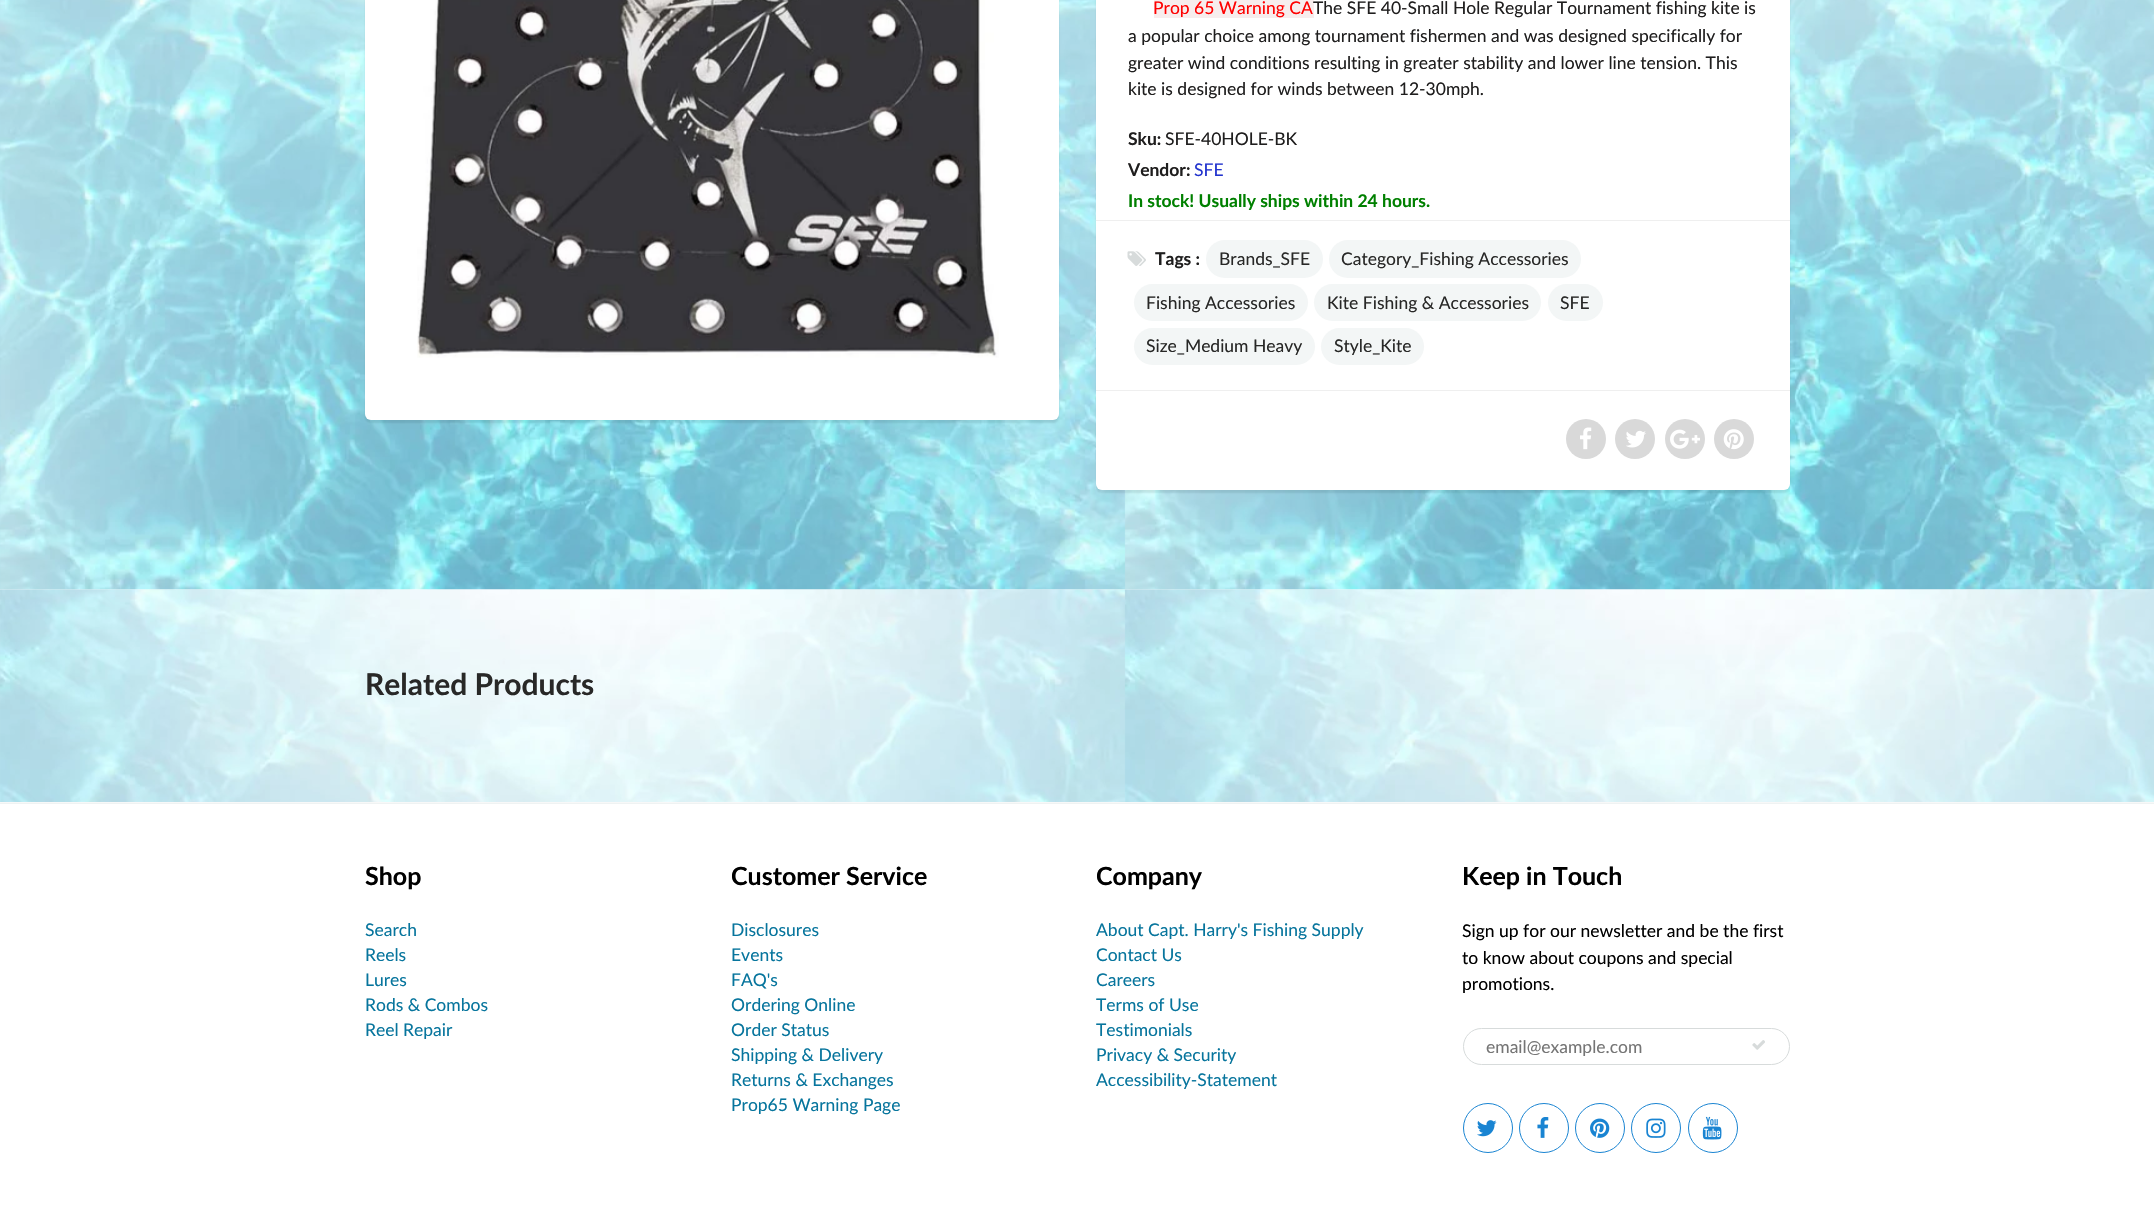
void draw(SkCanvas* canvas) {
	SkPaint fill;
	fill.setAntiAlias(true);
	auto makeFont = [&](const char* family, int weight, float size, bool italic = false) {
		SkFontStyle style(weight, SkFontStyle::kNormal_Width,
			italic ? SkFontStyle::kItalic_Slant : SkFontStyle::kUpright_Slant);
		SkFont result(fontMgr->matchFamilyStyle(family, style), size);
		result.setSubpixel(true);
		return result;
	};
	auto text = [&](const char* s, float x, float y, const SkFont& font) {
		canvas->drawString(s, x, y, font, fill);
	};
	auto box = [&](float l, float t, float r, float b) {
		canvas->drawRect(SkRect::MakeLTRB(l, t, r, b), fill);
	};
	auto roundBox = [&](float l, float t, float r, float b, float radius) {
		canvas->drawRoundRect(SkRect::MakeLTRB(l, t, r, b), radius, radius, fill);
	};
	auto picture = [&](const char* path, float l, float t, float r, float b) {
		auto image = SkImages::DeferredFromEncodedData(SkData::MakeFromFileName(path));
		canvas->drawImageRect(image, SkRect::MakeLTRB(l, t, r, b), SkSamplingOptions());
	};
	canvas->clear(0xFFFFFFFF);
	picture("image0.png", 0, 0, 2154, 590);
	fill.setColor(0x1A0B191C);
	fill.setMaskFilter(SkMaskFilter::MakeBlur(kNormal_SkBlurStyle, 1));
	canvas->drawRoundRect(SkRect::MakeLTRB(365, -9, 1059, 423), 6, 6, fill);
	fill.setMaskFilter(nullptr);
	fill.setColor(0xFFFFFFFF);
	roundBox(365, -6, 1059, 420, 6);
	picture("image1.png", 417, 0, 999, 358);
	fill.setColor(0x1A0B191C);
	fill.setMaskFilter(SkMaskFilter::MakeBlur(kNormal_SkBlurStyle, 1));
	canvas->drawRoundRect(SkRect::MakeLTRB(1096, -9, 1790, 493), 6, 6, fill);
	fill.setMaskFilter(nullptr);
	fill.setColor(0xFFFFFFFF);
	roundBox(1096, -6, 1790, 490, 6);
	fill.setColor(0xFFF7EDED);
	box(1154, 0, 1314, 18);
	fill.setColor(0xFFEFEFEF);
	box(1096, 220, 1790, 221);
	box(1096, 390, 1790, 391);
	picture("image2.png", 1127, 251, 1146, 266);
	fill.setColor(0xFFF3F6F6);
	roundBox(1206, 240, 1323, 278, 19);
	roundBox(1329, 240, 1581, 278, 19);
	roundBox(1134, 284, 1308, 321, 18.5f);
	roundBox(1314, 284, 1541, 321, 18.5f);
	roundBox(1548, 284, 1603, 321, 18.5f);
	roundBox(1134, 328, 1315, 365, 18.5f);
	roundBox(1321, 328, 1424, 365, 18.5f);
	fill.setColor(0xFFD9D9D9);
	canvas->drawCircle(1586, 439, 20, fill);
	picture("image3.png", 1580, 427, 1592, 450);
	canvas->drawCircle(1635, 439, 20, fill);
	picture("image4.png", 1626, 430, 1646, 448);
	canvas->drawCircle(1685, 439, 20, fill);
	picture("image5.png", 1670, 429, 1700, 449);
	canvas->drawCircle(1734, 439, 20, fill);
	picture("image6.png", 1723, 429, 1744, 450);
	fill.setColor(0xFFF8F8F8);
	box(0, 802, 2154, 803);
	picture("image7.png", 0, 589, 2154, 802);
	fill.setColor(0xFFEFF3F3);
	box(0, 803, 2154, 804);
	fill.setStyle(SkPaint::kStroke_Style);
	fill.setStrokeWidth(1);
	fill.setColor(0xFFD7DBDB);
	canvas->drawRoundRect(SkRect::MakeLTRB(1463.5f, 1028.5f, 1789.5f, 1064.5f), 18, 18, fill);
	picture("image8.png", 1752, 1040, 1765, 1050);
	fill.setColor(0xFF1984D2);
	canvas->drawCircle(1488, 1128, 24.5f, fill);
	picture("image9.png", 1477, 1120, 1497, 1137);
	canvas->drawCircle(1544, 1128, 24.5f, fill);
	picture("image10.png", 1537, 1117, 1549, 1138);
	canvas->drawCircle(1600, 1128, 24.5f, fill);
	picture("image11.png", 1590, 1118, 1610, 1138);
	canvas->drawCircle(1656, 1128, 24.5f, fill);
	picture("image12.png", 1646, 1118, 1666, 1138);
	canvas->drawCircle(1713, 1128, 24.5f, fill);
	picture("image13.png", 1702, 1116, 1722, 1140);
	auto font1 = makeFont("Lato", 400, 17.5f);
	fill.setStyle(SkPaint::kFill_Style);
	fill.setColor(0xFFFF0000);
	text("Prop 65 Warning CA", 1153, 14, font1);
	fill.setColor(0xFF1F1E1E);
	text("The SFE 40-Small Hole Regular Tournament fishing kite is", 1313, 14, font1);
	text("a popular choice among tournament fishermen and was designed specifically for", 1128, 42, font1);
	text("greater wind conditions resulting in greater stability and lower line tension. This", 1128, 69, font1);
	text("kite is designed for winds between 12-30mph.", 1128, 95, font1);
	auto font2 = makeFont("Lato", 700, 17.5f);
	text("Sku:", 1128, 145, font2);
	text("SFE-40HOLE-BK", 1165, 145, font1);
	text("Vendor:", 1128, 176, font2);
	fill.setColor(0xFF2334CE);
	text("SFE", 1194, 176, font1);
	fill.setColor(0xFF008000);
	text("In stock! Usually ships within 24 hours.", 1128, 207, font2);
	fill.setColor(0xFF1F1E1E);
	text("Tags :", 1155, 265, font2);
	fill.setColor(0xFF282827);
	text("Brands_SFE", 1219, 265, font1);
	text("Category_Fishing Accessories", 1341, 265, font1);
	text("Fishing Accessories", 1146, 309, font1);
	text("Kite Fishing & Accessories", 1327, 309, font1);
	text("SFE", 1560, 309, font1);
	text("Size_Medium Heavy", 1146, 352, font1);
	text("Style_Kite", 1334, 352, font1);
	auto font3 = makeFont("Lato", 700, 30);
	text("Related Products", 365, 695, font3);
	auto font4 = makeFont("Lato", 700, 25);
	fill.setColor(0xFF000000);
	text("Shop", 365, 885, font4);
	fill.setColor(0xFF07759D);
	text("Search", 365, 936, font1);
	text("Reels", 365, 961, font1);
	text("Lures", 365, 986, font1);
	text("Rods & Combos", 365, 1011, font1);
	text("Reel Repair", 365, 1036, font1);
	fill.setColor(0xFF000000);
	text("Customer Service", 731, 885, font4);
	fill.setColor(0xFF07759D);
	text("Disclosures", 731, 936, font1);
	text("Events", 731, 961, font1);
	text("FAQ's", 731, 986, font1);
	text("Ordering Online", 731, 1011, font1);
	text("Order Status", 731, 1036, font1);
	text("Shipping & Delivery", 731, 1061, font1);
	text("Returns & Exchanges", 731, 1086, font1);
	text("Prop65 Warning Page", 731, 1111, font1);
	fill.setColor(0xFF000000);
	text("Company", 1096, 885, font4);
	fill.setColor(0xFF07759D);
	text("About Capt. Harry's Fishing Supply", 1096, 936, font1);
	text("Contact Us", 1096, 961, font1);
	text("Careers", 1096, 986, font1);
	text("Terms of Use", 1096, 1011, font1);
	text("Testimonials", 1096, 1036, font1);
	text("Privacy & Security", 1096, 1061, font1);
	text("Accessibility-Statement", 1096, 1086, font1);
	fill.setColor(0xFF000000);
	text("Keep in Touch", 1462, 885, font4);
	text("Sign up for our newsletter and be the first", 1462, 937, font1);
	text("to know about coupons and special", 1462, 964, font1);
	text("promotions.", 1462, 990, font1);
	fill.setColor(0xFF757575);
	text("email@example.com", 1486, 1053, font1);
}
